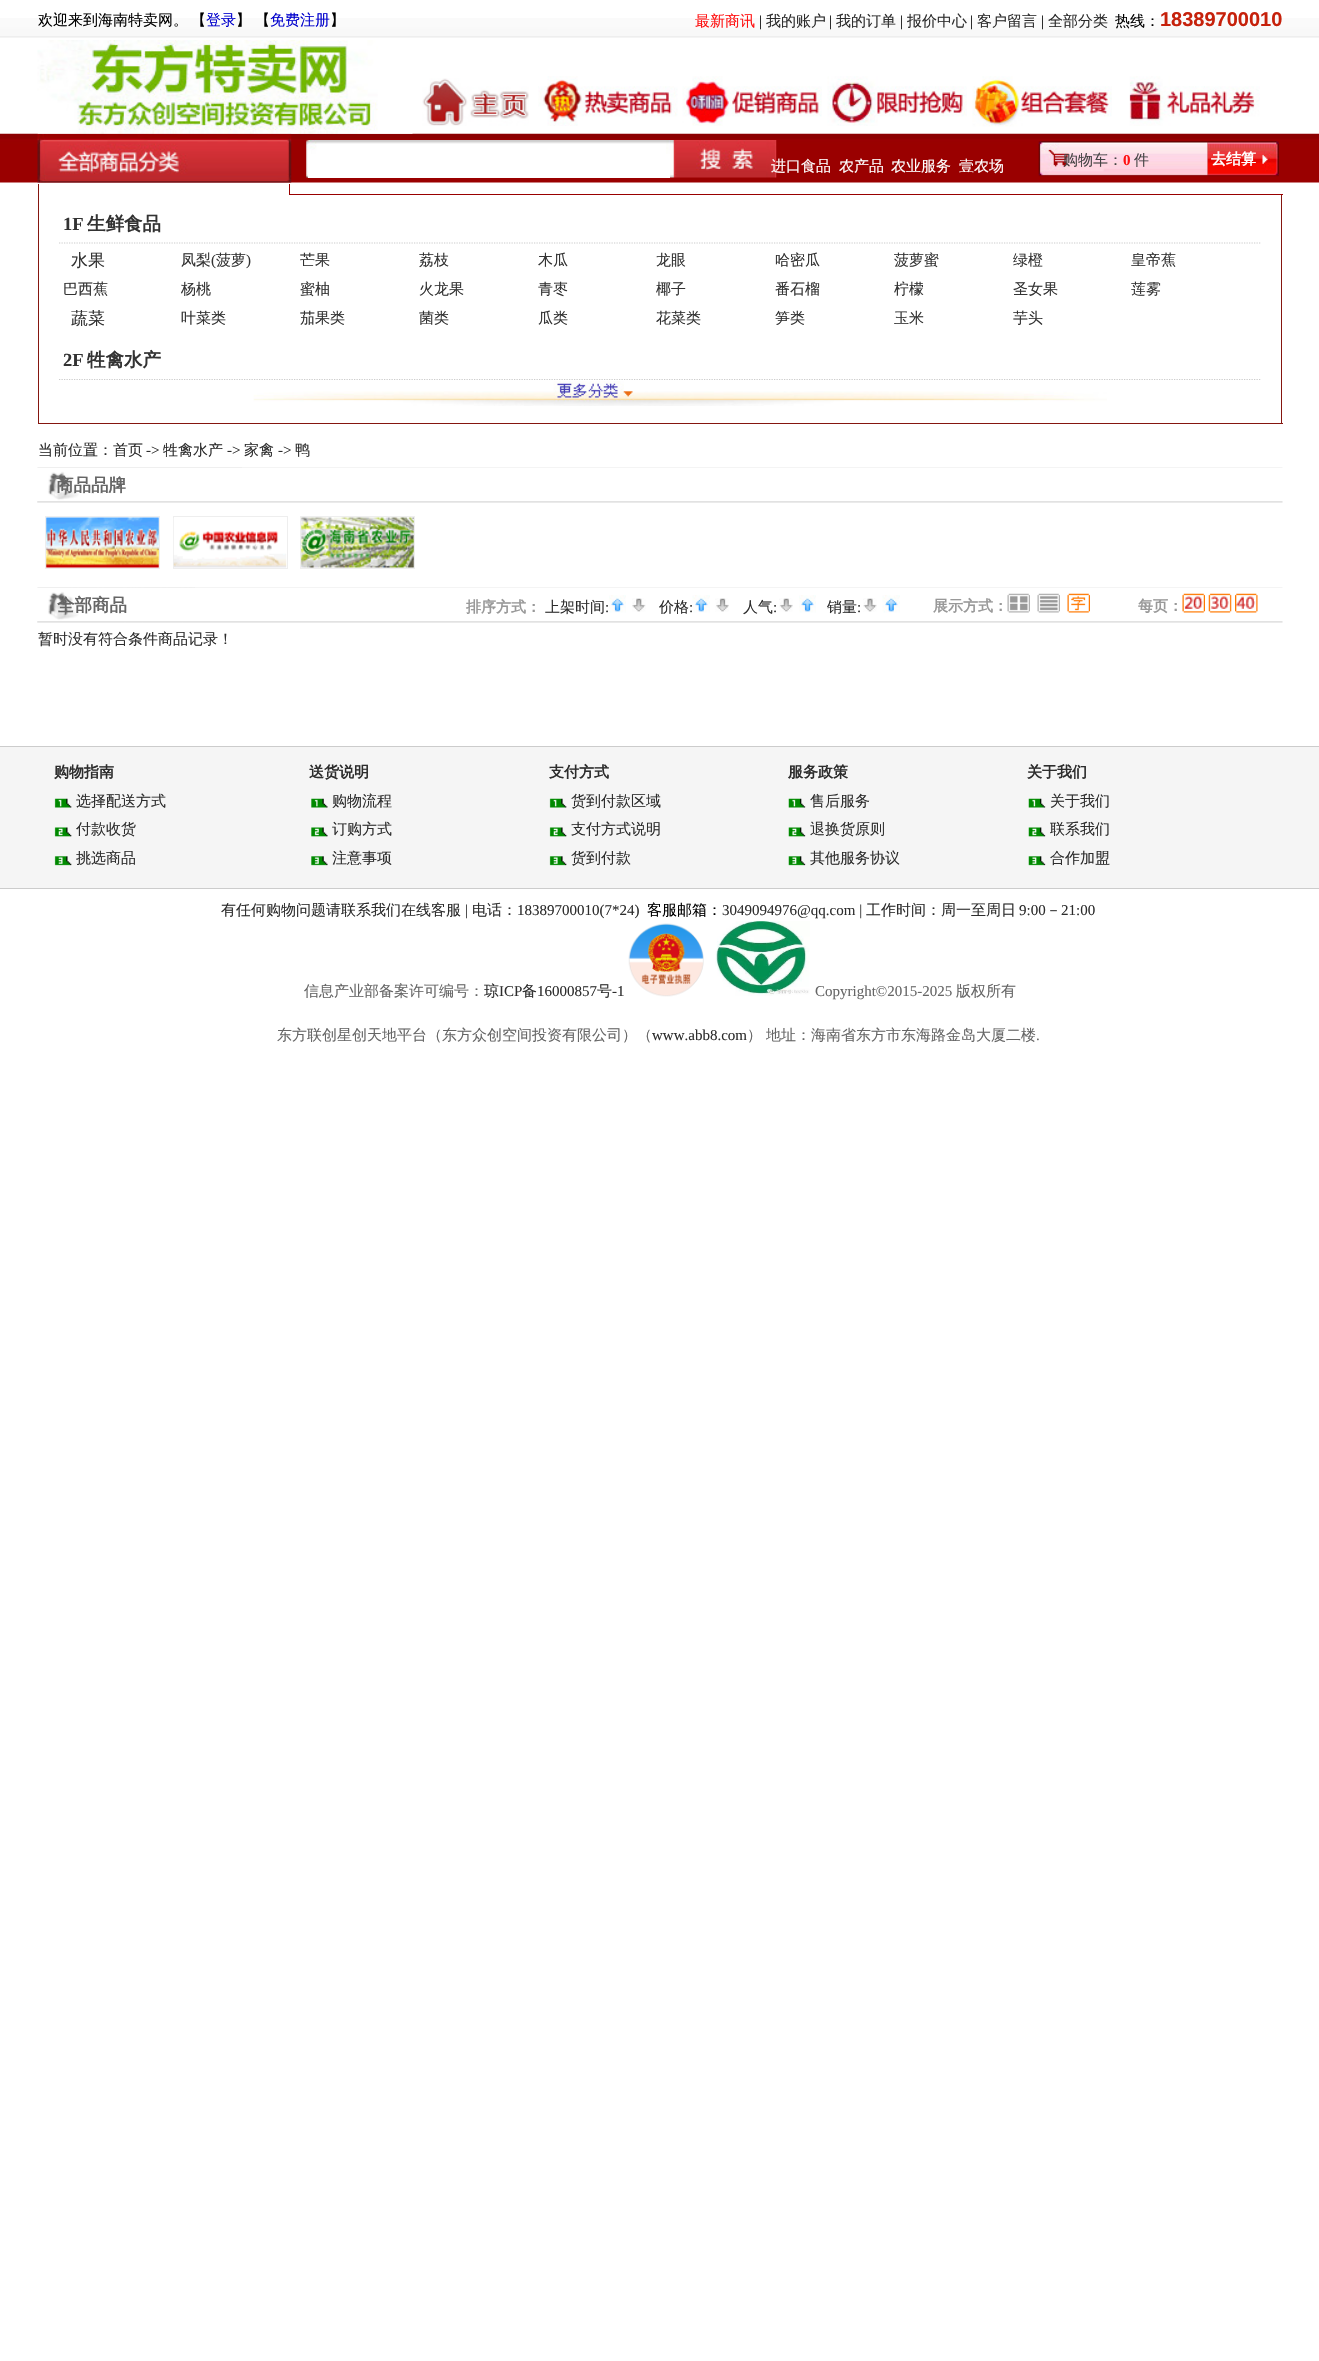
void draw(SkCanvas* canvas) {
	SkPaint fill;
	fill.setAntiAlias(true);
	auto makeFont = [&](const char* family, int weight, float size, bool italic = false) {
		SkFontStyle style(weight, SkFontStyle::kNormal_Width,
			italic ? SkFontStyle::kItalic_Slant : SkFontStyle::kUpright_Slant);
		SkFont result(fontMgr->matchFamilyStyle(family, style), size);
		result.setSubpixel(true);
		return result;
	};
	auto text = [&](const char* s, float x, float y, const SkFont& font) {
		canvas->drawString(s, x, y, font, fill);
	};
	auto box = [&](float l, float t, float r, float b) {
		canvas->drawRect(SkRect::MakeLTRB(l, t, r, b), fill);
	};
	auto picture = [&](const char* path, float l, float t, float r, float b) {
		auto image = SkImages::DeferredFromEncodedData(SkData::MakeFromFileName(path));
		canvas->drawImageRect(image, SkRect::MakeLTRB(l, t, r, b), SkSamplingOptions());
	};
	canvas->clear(0xFFFFFFFF);
	picture("image0.png", 0, 18, 1319, 38);
	picture("image8.png", 0, 133, 1319, 183);
	picture("image9.png", 37, 133, 292, 183);
	picture("image1.png", 37, 40, 413, 134);
	picture("image2.png", 422, 78, 529, 126);
	picture("image3.png", 538, 76, 678, 126);
	picture("image4.png", 682, 76, 822, 126);
	picture("image5.png", 827, 76, 967, 126);
	picture("image6.png", 972, 76, 1112, 127);
	picture("image7.png", 1129, 76, 1260, 126);
	picture("image10.png", 306, 140, 777, 178);
	fill.setColor(0xFFFFFFFF);
	box(308, 154, 670, 178);
	picture("image12.png", 1207, 141, 1279, 177);
	picture("image11.png", 1038, 141, 1208, 177);
	fill.setColor(0xFF85160F);
	box(38, 184, 39, 195);
	fill.setColor(0xFF990000);
	box(289, 184, 290, 195);
	box(290, 194, 1283, 195);
	fill.setColor(0xFF85160F);
	box(1281, 195, 1282, 424);
	box(38, 423, 1283, 424);
	box(38, 195, 39, 424);
	fill.setStyle(SkPaint::kStroke_Style);
	fill.setStrokeWidth(1.2f);
	fill.setColor(0xFFCCCCCC);
	fill.setPathEffect(SkDashPathEffect::Make({{1.25f, 1.25f}}, 0));
	canvas->drawPath(SkPathBuilder().moveTo(59, 243).lineTo(1261, 243).detach(), fill);
	fill.setPathEffect(nullptr);
	canvas->save();
	canvas->clipRect(SkRect::MakeLTRB(59, 199, 1261, 380));
	fill.setPathEffect(SkDashPathEffect::Make({{1.25f, 1.25f}}, 0));
	canvas->drawPath(SkPathBuilder().moveTo(59, 379.5f).lineTo(1261, 379.5f).detach(), fill);
	fill.setPathEffect(nullptr);
	canvas->restore();
	picture("image13.png", 253, 381, 1107, 406);
	picture("image14.png", 37, 467, 1283, 503);
	picture("image15.png", 37, 467, 242, 503);
	fill.setStrokeWidth(1);
	fill.setColor(0xFFEEEEEE);
	canvas->drawRect(SkRect::MakeLTRB(45.5f, 516.5f, 159.5f, 568.5f), fill);
	picture("image16.png", 46, 517, 159, 568);
	canvas->drawRect(SkRect::MakeLTRB(173.5f, 516.5f, 287.5f, 568.5f), fill);
	picture("image17.png", 173, 518, 287, 568);
	canvas->drawRect(SkRect::MakeLTRB(300.5f, 516.5f, 414.5f, 568.5f), fill);
	picture("image18.png", 301, 517, 414, 568);
	picture("image14.png", 37, 587, 1283, 623);
	picture("image19.png", 37, 587, 195, 623);
	picture("image20.png", 609, 595, 626, 613);
	picture("image21.png", 632, 598, 646, 612);
	picture("image22.png", 692, 595, 710, 613);
	picture("image23.png", 715, 598, 729, 612);
	picture("image24.png", 779, 598, 793, 612);
	picture("image20.png", 799, 595, 816, 613);
	picture("image25.png", 863, 598, 877, 612);
	picture("image22.png", 882, 595, 900, 613);
	picture("image26.png", 1007, 593, 1030, 613);
	picture("image27.png", 1037, 593, 1060, 613);
	picture("image28.png", 1067, 593, 1090, 613);
	picture("image29.png", 1182, 593, 1205, 613);
	picture("image30.png", 1208, 593, 1232, 613);
	picture("image31.png", 1235, 593, 1258, 613);
	fill.setStyle(SkPaint::kFill_Style);
	fill.setColor(0xFFF5F5F5);
	box(0, 747, 1319, 888);
	fill.setColor(0xFFCCCCCC);
	box(0, 746, 1319, 747);
	picture("image32.png", 54, 798, 72, 808);
	picture("image33.png", 54, 827, 72, 837);
	picture("image34.png", 54, 856, 72, 866);
	picture("image35.png", 311, 798, 328, 808);
	picture("image36.png", 311, 827, 328, 837);
	picture("image37.png", 311, 856, 328, 866);
	picture("image38.png", 549, 798, 567, 808);
	picture("image39.png", 549, 827, 567, 837);
	picture("image40.png", 549, 856, 567, 866);
	picture("image41.png", 788, 798, 806, 808);
	picture("image42.png", 788, 827, 806, 837);
	picture("image43.png", 788, 856, 806, 866);
	picture("image41.png", 1028, 798, 1046, 808);
	picture("image42.png", 1028, 827, 1046, 837);
	picture("image43.png", 1028, 856, 1046, 866);
	box(0, 888, 1319, 889);
	picture("image44.png", 628, 923, 704, 997);
	picture("image45.png", 715, 921, 810, 996);
	auto font1 = makeFont("WenQuanYi Zen Hei", 500, 15);
	fill.setColor(0xFF000000);
	text("欢迎来到海南特卖网。", 38, 25, font1);
	text("【", 191, 25, font1);
	fill.setColor(0xFF0000CC);
	text("登录", 206, 25, font1);
	fill.setColor(0xFF000000);
	text("】", 236, 25, font1);
	text("【", 255, 25, font1);
	fill.setColor(0xFF0000CC);
	text("免费注册", 270, 25, font1);
	fill.setColor(0xFF000000);
	text("】", 330, 25, font1);
	fill.setColor(0xFFFF1111);
	text("最新商讯", 695, 26, font1);
	auto font2 = makeFont("Liberation Serif", 400, 15);
	fill.setColor(0xFF000000);
	text("|", 759, 26, font2);
	fill.setColor(0xFF2D2D2D);
	text("我的账户", 766, 26, font1);
	fill.setColor(0xFF000000);
	text("|", 829, 26, font2);
	fill.setColor(0xFF2D2D2D);
	text("我的订单", 836, 26, font1);
	fill.setColor(0xFF000000);
	text("|", 900, 26, font2);
	fill.setColor(0xFF2D2D2D);
	text("报价中心", 907, 26, font1);
	fill.setColor(0xFF000000);
	text("|", 970, 26, font2);
	fill.setColor(0xFF2D2D2D);
	text("客户留言", 977, 26, font1);
	fill.setColor(0xFF000000);
	text("|", 1041, 26, font2);
	fill.setColor(0xFF2D2D2D);
	text("全部分类", 1048, 26, font1);
	fill.setColor(0xFF000000);
	text("热线：", 1115, 26, font1);
	auto font3 = makeFont("Liberation Sans", 700, 20);
	fill.setColor(0xFFC6210B);
	text("18389700010", 1160, 26, font3);
	fill.setColor(0xFFFFFFFF);
	text("进口食品", 771, 171, font1);
	text("农产品", 839, 171, font1);
	text("农业服务", 891, 171, font1);
	text("壹农场", 959, 171, font1);
	fill.setColor(0xFF444444);
	text("购物车：", 1063, 165, font1);
	auto font4 = makeFont("Liberation Serif", 700, 15);
	fill.setColor(0xFFFF1111);
	text("0", 1123, 165, font4);
	fill.setColor(0xFF444444);
	text("件", 1134, 165, font1);
	auto font5 = makeFont("WenQuanYi Zen Hei", 700, 15);
	fill.setColor(0xFFFFFFFF);
	text("去结算", 1211, 164, font5);
	auto font6 = makeFont("Liberation Serif", 700, 18.5f);
	fill.setColor(0xFF333333);
	text("1F", 63, 230, font6);
	auto font7 = makeFont("WenQuanYi Zen Hei", 700, 18.5f);
	text("生鲜食品", 87, 230, font7);
	auto font8 = makeFont("WenQuanYi Zen Hei", 500, 17);
	text("水果", 71, 266, font8);
	text("凤梨", 181, 265, font1);
	text("(", 211, 265, font2);
	text("菠萝", 216, 265, font1);
	text(")", 246, 265, font2);
	text("芒果", 300, 265, font1);
	text("荔枝", 419, 265, font1);
	text("木瓜", 538, 265, font1);
	text("龙眼", 656, 265, font1);
	text("哈密瓜", 775, 265, font1);
	text("菠萝蜜", 894, 265, font1);
	text("绿橙", 1013, 265, font1);
	text("皇帝蕉", 1131, 265, font1);
	text("巴西蕉", 63, 294, font1);
	text("杨桃", 181, 294, font1);
	text("蜜柚", 300, 294, font1);
	text("火龙果", 419, 294, font1);
	text("青枣", 538, 294, font1);
	text("椰子", 656, 294, font1);
	text("番石榴", 775, 294, font1);
	text("柠檬", 894, 294, font1);
	text("圣女果", 1013, 294, font1);
	text("莲雾", 1131, 294, font1);
	text("蔬菜", 71, 324, font8);
	text("叶菜类", 181, 323, font1);
	text("茄果类", 300, 323, font1);
	text("菌类", 419, 323, font1);
	text("瓜类", 538, 323, font1);
	text("花菜类", 656, 323, font1);
	text("笋类", 775, 323, font1);
	text("玉米", 894, 323, font1);
	text("芋头", 1013, 323, font1);
	text("2F", 63, 366, font6);
	text("牲禽水产", 87, 366, font7);
	fill.setColor(0xFF2D2D2D);
	text("当前位置：首页", 38, 455, font1);
	text("->", 146, 455, font2);
	text("牲禽水产", 163, 455, font1);
	text("->", 227, 455, font2);
	text("家禽", 244, 455, font1);
	text("->", 278, 455, font2);
	text("鸭", 295, 455, font1);
	auto font9 = makeFont("WenQuanYi Zen Hei", 700, 17.5f);
	fill.setColor(0xFF666666);
	text("商品品牌", 56, 491, font9);
	text("全部商品", 57, 611, font9);
	fill.setColor(0xFF999999);
	text("排序方式：", 466, 612, font5);
	fill.setColor(0xFF2D2D2D);
	text("上架时间", 545, 612, font1);
	text(":", 605, 612, font2);
	text("价格", 659, 612, font1);
	text(":", 689, 612, font2);
	text("人气", 743, 612, font1);
	text(":", 773, 612, font2);
	text("销量", 827, 612, font1);
	text(":", 857, 612, font2);
	fill.setColor(0xFF999999);
	text("展示方式：", 933, 611, font5);
	text("每页：", 1138, 611, font5);
	fill.setColor(0xFF2D2D2D);
	text("暂时没有符合条件商品记录！", 38, 644, font1);
	text("购物指南", 54, 777, font5);
	text("选择配送方式", 76, 806, font1);
	text("付款收货", 76, 834, font1);
	text("挑选商品", 76, 863, font1);
	text("送货说明", 309, 777, font5);
	text("购物流程", 332, 806, font1);
	text("订购方式", 332, 834, font1);
	text("注意事项", 332, 863, font1);
	text("支付方式", 549, 777, font5);
	text("货到付款区域", 571, 806, font1);
	text("支付方式说明", 571, 834, font1);
	text("货到付款", 571, 863, font1);
	text("服务政策", 788, 777, font5);
	text("售后服务", 810, 806, font1);
	text("退换货原则", 810, 834, font1);
	text("其他服务协议", 810, 863, font1);
	text("关于我们", 1027, 777, font5);
	text("关于我们", 1050, 806, font1);
	text("联系我们", 1050, 834, font1);
	text("合作加盟", 1050, 863, font1);
	text("有任何购物问题请联系我们在线客服", 221, 915, font1);
	text("|", 465, 915, font2);
	text("电话：", 472, 915, font1);
	text("18389700010(7*24)", 517, 915, font2);
	fill.setColor(0xFF000000);
	text("客服邮箱：", 647, 915, font1);
	fill.setColor(0xFF2D2D2D);
	text("3049094976@qq.com |", 722, 915, font2);
	text("工作时间：周一至周日", 866, 915, font1);
	text("9:00", 1019, 915, font2);
	text("－", 1046, 915, font1);
	text("21:00", 1061, 915, font2);
	fill.setColor(0xFF666666);
	text("信息产业部备案许可编号：", 304, 996, font1);
	fill.setColor(0xFF2D2D2D);
	text("琼", 484, 996, font1);
	text("ICP", 499, 996, font2);
	text("备", 522, 996, font1);
	text("16000857", 537, 996, font2);
	text("号", 597, 996, font1);
	text("-1", 612, 996, font2);
	fill.setColor(0xFF666666);
	text("Copyright©2015-2025", 815, 996, font2);
	text("版权所有", 956, 996, font1);
	text("东方联创星创天地平台（东方众创空间投资有限公司）（", 277, 1040, font1);
	fill.setColor(0xFF2D2D2D);
	text("www.abb8.com", 652, 1040, font2);
	fill.setColor(0xFF666666);
	text("）", 747, 1040, font1);
	text("地址：海南省东方市东海路金岛大厦二楼", 766, 1040, font1);
	text(".", 1036, 1040, font2);
}
